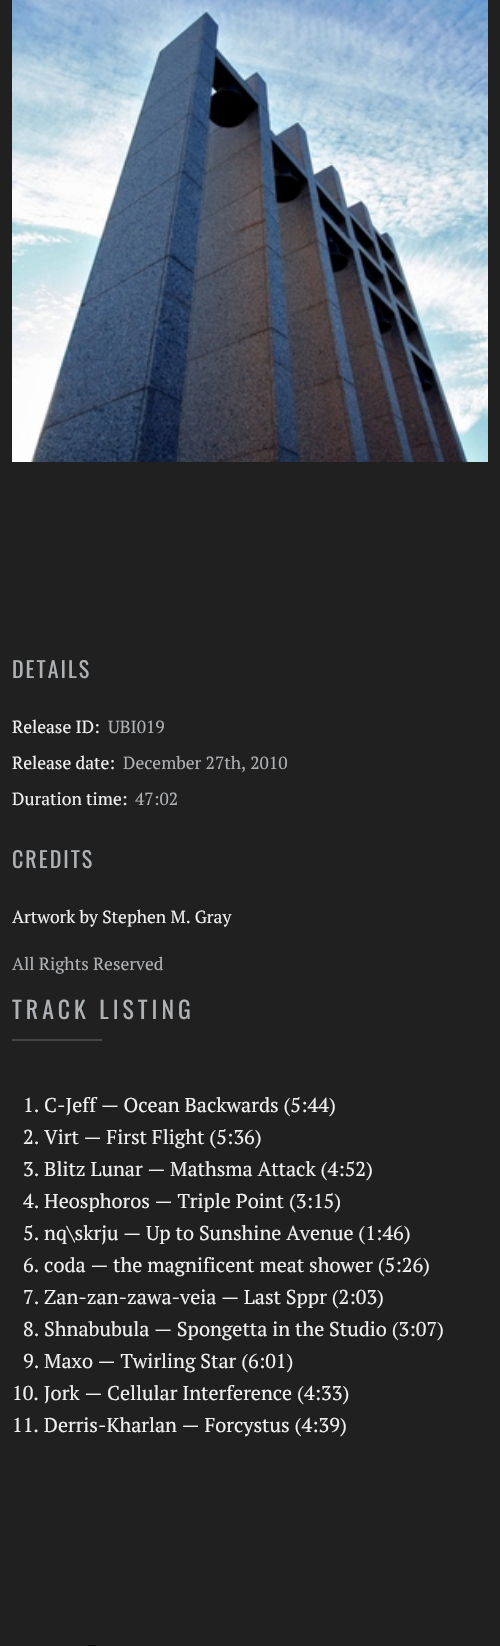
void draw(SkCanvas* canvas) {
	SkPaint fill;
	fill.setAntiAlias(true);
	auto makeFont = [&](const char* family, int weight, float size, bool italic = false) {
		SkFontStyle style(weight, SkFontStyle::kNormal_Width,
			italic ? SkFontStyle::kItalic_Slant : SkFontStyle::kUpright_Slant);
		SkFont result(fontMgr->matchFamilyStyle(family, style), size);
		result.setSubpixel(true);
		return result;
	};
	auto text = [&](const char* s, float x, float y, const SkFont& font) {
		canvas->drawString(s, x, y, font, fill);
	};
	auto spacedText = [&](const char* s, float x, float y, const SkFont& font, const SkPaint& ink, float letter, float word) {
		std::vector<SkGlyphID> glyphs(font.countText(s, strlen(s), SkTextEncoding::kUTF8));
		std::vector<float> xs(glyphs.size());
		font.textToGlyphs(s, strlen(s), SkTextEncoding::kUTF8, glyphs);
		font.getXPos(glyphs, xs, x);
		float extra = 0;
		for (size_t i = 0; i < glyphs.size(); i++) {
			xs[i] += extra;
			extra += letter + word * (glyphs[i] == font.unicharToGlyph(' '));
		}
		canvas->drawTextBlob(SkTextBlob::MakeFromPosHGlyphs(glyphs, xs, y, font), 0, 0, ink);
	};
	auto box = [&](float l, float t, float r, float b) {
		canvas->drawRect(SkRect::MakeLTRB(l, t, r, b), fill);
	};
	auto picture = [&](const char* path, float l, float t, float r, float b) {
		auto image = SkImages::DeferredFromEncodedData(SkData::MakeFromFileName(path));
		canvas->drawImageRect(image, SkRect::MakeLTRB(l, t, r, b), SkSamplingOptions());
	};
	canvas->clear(0xFF202020);
	picture("image0.png", 12, 0, 488, 462);
	fill.setColor(0xFF444444);
	box(12, 1039, 102, 1041);
	fill.setColor(0xFF000000);
	box(88, 1645, 96, 1646);
	auto font1 = makeFont("Oswald", 400, 22);
	fill.setColor(0xFFAFB2B5);
	spacedText("DETAILS", 12, 678, font1, fill, 2, 0);
	auto font2 = makeFont("PT Serif", 400, 17.5f);
	fill.setColor(0xFFF0F0F0);
	text("Release ID:", 12, 733, font2);
	fill.setColor(0xFFAFB2B5);
	text("UBI019", 108, 733, font2);
	fill.setColor(0xFFF0F0F0);
	text("Release date:", 12, 769, font2);
	fill.setColor(0xFFAFB2B5);
	text("December 27th, 2010", 123, 769, font2);
	fill.setColor(0xFFF0F0F0);
	text("Duration time:", 12, 805, font2);
	fill.setColor(0xFFAFB2B5);
	text("47:02", 135, 805, font2);
	spacedText("CREDITS", 12, 868, font1, fill, 2, 0);
	fill.setColor(0xFFF0F0F0);
	text("Artwork by Stephen M. Gray", 12, 923, font2);
	fill.setColor(0xFFAFB2B5);
	text("All Rights Reserved", 12, 970, font2);
	auto font3 = makeFont("Oswald", 400, 23.75f);
	spacedText("TRACK LISTING", 12, 1019, font3, fill, 4, 0);
	auto font4 = makeFont("PT Serif", 400, 20);
	fill.setColor(0xFFF0F0F0);
	text("1. C-Jeff — Ocean Backwards (5:44)", 23, 1112, font4);
	text("2. Virt — First Flight (5:36)", 23, 1144, font4);
	text("3. Blitz Lunar — Mathsma Attack (4:52)", 23, 1176, font4);
	text("4. Heosphoros — Triple Point (3:15)", 23, 1208, font4);
	text("5. nq\\skrju — Up to Sunshine Avenue (1:46)", 23, 1240, font4);
	text("6. coda — the magnificent meat shower (5:26)", 23, 1272, font4);
	text("7. Zan-zan-zawa-veia — Last Sppr (2:03)", 23, 1304, font4);
	text("8. Shnabubula — Spongetta in the Studio (3:07)", 23, 1336, font4);
	text("9. Maxo — Twirling Star (6:01)", 23, 1368, font4);
	text("10. Jork — Cellular Interference (4:33)", 12, 1400, font4);
	text("11. Derris-Kharlan — Forcystus (4:39)", 12, 1432, font4);
}
